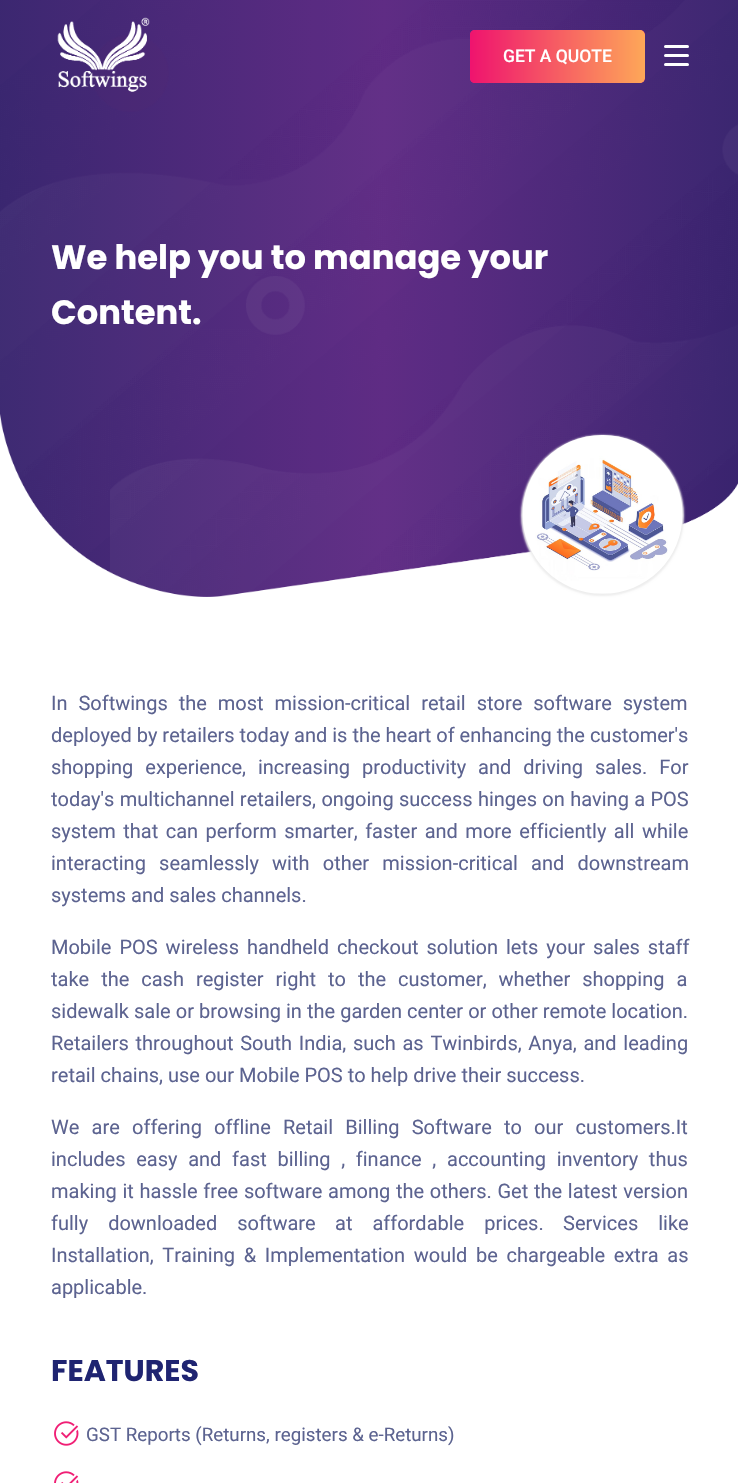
void draw(SkCanvas* canvas) {
	SkPaint fill;
	fill.setAntiAlias(true);
	auto makeFont = [&](const char* family, int weight, float size, bool italic = false) {
		SkFontStyle style(weight, SkFontStyle::kNormal_Width,
			italic ? SkFontStyle::kItalic_Slant : SkFontStyle::kUpright_Slant);
		SkFont result(fontMgr->matchFamilyStyle(family, style), size);
		result.setSubpixel(true);
		return result;
	};
	auto text = [&](const char* s, float x, float y, const SkFont& font) {
		canvas->drawString(s, x, y, font, fill);
	};
	auto spacedText = [&](const char* s, float x, float y, const SkFont& font, const SkPaint& ink, float letter, float word) {
		std::vector<SkGlyphID> glyphs(font.countText(s, strlen(s), SkTextEncoding::kUTF8));
		std::vector<float> xs(glyphs.size());
		font.textToGlyphs(s, strlen(s), SkTextEncoding::kUTF8, glyphs);
		font.getXPos(glyphs, xs, x);
		float extra = 0;
		for (size_t i = 0; i < glyphs.size(); i++) {
			xs[i] += extra;
			extra += letter + word * (glyphs[i] == font.unicharToGlyph(' '));
		}
		canvas->drawTextBlob(SkTextBlob::MakeFromPosHGlyphs(glyphs, xs, y, font), 0, 0, ink);
	};
	auto box = [&](float l, float t, float r, float b) {
		canvas->drawRect(SkRect::MakeLTRB(l, t, r, b), fill);
	};
	auto roundBox = [&](float l, float t, float r, float b, float radius) {
		canvas->drawRoundRect(SkRect::MakeLTRB(l, t, r, b), radius, radius, fill);
	};
	auto picture = [&](const char* path, float l, float t, float r, float b) {
		auto image = SkImages::DeferredFromEncodedData(SkData::MakeFromFileName(path));
		canvas->drawImageRect(image, SkRect::MakeLTRB(l, t, r, b), SkSamplingOptions());
	};
	canvas->clear(0xFFFFFFFF);
	picture("image1.png", 0, 0, 738, 597);
	picture("image0.png", 57, 17, 150, 92);
	fill.setColor(0xFFF01F75);
	roundBox(470, 30, 645, 83, 5);
	canvas->save();
	canvas->clipPath(SkPathBuilder().moveTo(475, 30).lineTo(640, 30).cubicTo(643, 30, 645, 32, 645, 35).lineTo(645, 78).cubicTo(645, 81, 643, 83, 640, 83).lineTo(475, 83).cubicTo(472, 83, 470, 81, 470, 78).lineTo(470, 35).cubicTo(470, 32, 472, 30, 475, 30).close().detach(), true);
	{
		const SkColor colors[] = {0xFFEF146E, 0xFFFEA958, 0xFFEF146E};
		const float stops[] = {0, 0.51f, 1};
		const SkPoint ends[] = {{126, 56}, {471, 56}};
		fill.setShader(SkGradientShader::MakeLinear(ends, colors, stops, 3, SkTileMode::kClamp));
		fill.setAlpha(255);
	}
	box(470, 30, 471, 83);
	{
		const SkColor colors[] = {0xFFEF146E, 0xFFFEA958, 0xFFEF146E};
		const float stops[] = {0, 0.51f, 1};
		const SkPoint ends[] = {{471, 56}, {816, 56}};
		fill.setShader(SkGradientShader::MakeLinear(ends, colors, stops, 3, SkTileMode::kClamp));
		fill.setAlpha(255);
	}
	canvas->drawPath(SkPathBuilder().moveTo(471, 30).lineTo(640, 30).cubicTo(643, 30, 645, 32, 645, 35).lineTo(645, 78).cubicTo(645, 81, 643, 83, 640, 83).lineTo(471, 83).close().detach(), fill);
	canvas->restore();
	fill.setShader(nullptr);
	fill.setColor(0xFFFFFFFF);
	roundBox(664, 45, 689, 48, 1.5f);
	roundBox(664, 54, 689, 57, 1.5f);
	roundBox(664, 63, 689, 66, 1.5f);
	picture("image3.png", 0, 414, 738, 600);
	fill.setColor(0xFFEEEEEE);
	fill.setMaskFilter(SkMaskFilter::MakeBlur(kNormal_SkBlurStyle, 1));
	canvas->drawRoundRect(SkRect::MakeLTRB(521, 435, 684, 596), 80.5f, 80.5f, fill);
	fill.setMaskFilter(nullptr);
	picture("image2.png", 522, 435, 683, 594);
	picture("image4.png", 54, 1421, 79, 1446);
	picture("image5.png", 54, 1471, 79, 1483);
	auto font1 = makeFont("Roboto", 500, 17.5f);
	fill.setColor(0xFFFFFFFF);
	text("GET A QUOTE", 503, 62, font1);
	auto font2 = makeFont("Poppins", 700, 33.75f);
	text("We help you to manage your", 51, 269, font2);
	text("Content.", 51, 324, font2);
	auto font3 = makeFont("Roboto", 400, 20);
	fill.setColor(0xFF5C6390);
	spacedText("In Softwings the most mission-critical retail store software system", 51, 710, font3, fill, 0, 6);
	text("deployed by retailers today and is the heart of enhancing the customer's", 51, 742, font3);
	spacedText("shopping experience, increasing productivity and driving sales. For", 51, 774, font3, fill, 0, 7);
	spacedText("today's multichannel retailers, ongoing success hinges on having a POS", 51, 806, font3, fill, 0, 0.4f);
	spacedText("system that can perform smarter, faster and more efficiently all while", 51, 838, font3, fill, 0, 2.5f);
	spacedText("interacting seamlessly with other mission-critical and downstream", 51, 870, font3, fill, 0, 8.25f);
	text("systems and sales channels.", 51, 902, font3);
	spacedText("Mobile POS wireless handheld checkout solution lets your sales staff", 51, 954, font3, fill, 0, 3);
	spacedText("take the cash register right to the customer, whether shopping a", 51, 986, font3, fill, 0, 7);
	spacedText("sidewalk sale or browsing in the garden center or other remote location.", 51, 1018, font3, fill, 0, 0.1f);
	spacedText("Retailers throughout South India, such as Twinbirds, Anya, and leading", 51, 1050, font3, fill, 0, 1.75f);
	text("retail chains, use our Mobile POS to help drive their success.", 51, 1082, font3);
	spacedText("We are offering offline Retail Billing Software to our customers.It", 51, 1134, font3, fill, 0, 7.25f);
	spacedText("includes easy and fast billing , finance , accounting inventory thus", 51, 1166, font3, fill, 0, 5.75f);
	spacedText("making it hassle free software among the others. Get the latest version", 51, 1198, font3, fill, 0, 0.75f);
	spacedText("fully downloaded software", 51, 1230, font3, fill, 0, 15);
	spacedText("at affordable prices.", 335, 1230, font3, fill, 0, 15);
	spacedText("Services like", 563, 1230, font3, fill, 0, 15);
	spacedText("Installation, Training & Implementation would be chargeable extra as", 51, 1262, font3, fill, 0, 3.75f);
	text("applicable.", 51, 1294, font3);
	auto font4 = makeFont("Poppins", 700, 30);
	fill.setColor(0xFF1F2471);
	text("FEATURES", 51, 1381, font4);
	auto font5 = makeFont("Roboto", 400, 18.75f);
	fill.setColor(0xFF5C6390);
	text("GST Reports (Returns, registers & e-Returns)", 86, 1441, font5);
}
